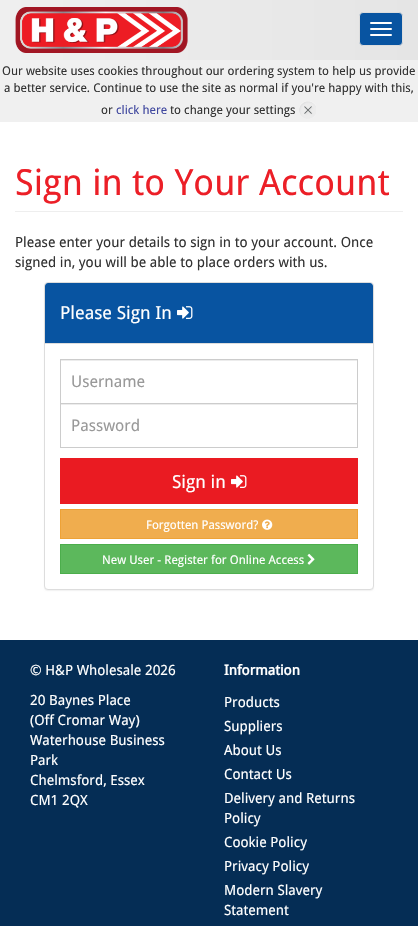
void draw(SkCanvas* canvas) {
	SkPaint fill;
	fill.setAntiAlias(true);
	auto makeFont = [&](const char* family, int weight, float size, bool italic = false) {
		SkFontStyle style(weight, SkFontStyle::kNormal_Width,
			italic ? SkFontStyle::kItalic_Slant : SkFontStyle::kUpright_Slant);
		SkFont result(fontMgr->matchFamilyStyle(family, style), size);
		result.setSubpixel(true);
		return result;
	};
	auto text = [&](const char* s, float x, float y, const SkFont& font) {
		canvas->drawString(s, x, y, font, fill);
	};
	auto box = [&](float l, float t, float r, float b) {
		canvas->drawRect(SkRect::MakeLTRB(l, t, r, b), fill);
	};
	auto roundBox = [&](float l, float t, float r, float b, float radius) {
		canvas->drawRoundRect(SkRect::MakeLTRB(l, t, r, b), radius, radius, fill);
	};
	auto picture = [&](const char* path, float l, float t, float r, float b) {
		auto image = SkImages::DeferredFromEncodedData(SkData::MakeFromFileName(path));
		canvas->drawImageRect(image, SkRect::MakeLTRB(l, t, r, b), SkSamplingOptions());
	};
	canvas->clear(0xFFFFFFFF);
	{
		const SkColor colors[] = {0xFFEFEFEF, 0xFFE5E5E5};
		const float stops[] = {0, 1};
		const SkPoint ends[] = {{0, 30}, {418, 30}};
		fill.setShader(SkGradientShader::MakeLinear(ends, colors, stops, 2, SkTileMode::kClamp));
		fill.setAlpha(255);
	}
	box(0, 0, 418, 60);
	picture("image0.png", 15, 7, 188, 53);
	fill.setShader(nullptr);
	fill.setColor(0xFF0854A1);
	canvas->drawRoundRect(SkRect::MakeLTRB(359.5f, 12.5f, 402.5f, 45.5f), 3.5f, 3.5f, fill);
	fill.setStyle(SkPaint::kStroke_Style);
	fill.setStrokeWidth(1);
	fill.setColor(0xFFDDDDDD);
	canvas->drawRoundRect(SkRect::MakeLTRB(359.5f, 12.5f, 402.5f, 45.5f), 3.5f, 3.5f, fill);
	fill.setStyle(SkPaint::kFill_Style);
	fill.setColor(0xFFFFFFFF);
	roundBox(370, 22, 392, 24, 1);
	roundBox(370, 28, 392, 30, 1);
	roundBox(370, 34, 392, 36, 1);
	fill.setColor(0xFFF0F0F0);
	box(0, 60, 418, 122);
	picture("image1.png", 299, 101, 316, 119);
	fill.setColor(0xFFEEEEEE);
	box(15, 211, 403, 212);
	fill.setColor(0x0D000000);
	fill.setMaskFilter(SkMaskFilter::MakeBlur(kNormal_SkBlurStyle, 0.5f));
	canvas->drawRoundRect(SkRect::MakeLTRB(44, 283, 374, 591), 4, 4, fill);
	fill.setMaskFilter(nullptr);
	fill.setColor(0xFFFFFFFF);
	canvas->drawRoundRect(SkRect::MakeLTRB(44.5f, 282.5f, 373.5f, 589.5f), 3.5f, 3.5f, fill);
	fill.setStyle(SkPaint::kStroke_Style);
	fill.setColor(0xFFDDDDDD);
	canvas->drawRoundRect(SkRect::MakeLTRB(44.5f, 282.5f, 373.5f, 589.5f), 3.5f, 3.5f, fill);
	fill.setStyle(SkPaint::kFill_Style);
	fill.setColor(0xFF0854A1);
	canvas->drawPath(SkPathBuilder().moveTo(48, 283).lineTo(370, 283).cubicTo(371.5f, 283, 373, 284.5f, 373, 286).lineTo(373, 344).lineTo(45, 344).lineTo(45, 286).cubicTo(45, 284.5f, 46.5f, 283, 48, 283).close().detach(), fill);
	fill.setColor(0xFFDDDDDD);
	box(45, 343, 373, 344);
	picture("image2.png", 177, 306, 193, 319);
	fill.setColor(0xFFECECEC);
	box(61, 360, 357, 361);
	fill.setStyle(SkPaint::kStroke_Style);
	fill.setColor(0xFFCCCCCC);
	canvas->drawRect(SkRect::MakeLTRB(60.5f, 359.5f, 357.5f, 403.5f), fill);
	fill.setStyle(SkPaint::kFill_Style);
	fill.setColor(0xFFECECEC);
	box(61, 404, 357, 405);
	fill.setStyle(SkPaint::kStroke_Style);
	fill.setColor(0xFFCCCCCC);
	canvas->drawRect(SkRect::MakeLTRB(60.5f, 403.5f, 357.5f, 447.5f), fill);
	fill.setStyle(SkPaint::kFill_Style);
	fill.setColor(0xFFEA1B22);
	box(60, 458, 358, 504);
	picture("image3.png", 231, 475, 247, 488);
	fill.setColor(0xFFF0AD4E);
	canvas->drawRect(SkRect::MakeLTRB(60.5f, 509.5f, 357.5f, 538.5f), fill);
	fill.setStyle(SkPaint::kStroke_Style);
	fill.setColor(0xFFEEA236);
	canvas->drawRect(SkRect::MakeLTRB(60.5f, 509.5f, 357.5f, 538.5f), fill);
	picture("image4.png", 262, 519, 273, 530);
	fill.setStyle(SkPaint::kFill_Style);
	fill.setColor(0xFF5CB85C);
	canvas->drawRect(SkRect::MakeLTRB(60.5f, 544.5f, 357.5f, 573.5f), fill);
	fill.setStyle(SkPaint::kStroke_Style);
	fill.setColor(0xFF4CAE4C);
	canvas->drawRect(SkRect::MakeLTRB(60.5f, 544.5f, 357.5f, 573.5f), fill);
	picture("image5.png", 307, 553, 315, 565);
	fill.setStyle(SkPaint::kFill_Style);
	fill.setColor(0xFF052D55);
	box(0, 640, 418, 926);
	auto font1 = makeFont("Droid Sans", 400, 12);
	fill.setColor(0xFF333333);
	text("Our website uses cookies throughout our ordering system to help us provide", 2, 75, font1);
	text("a better service. Continue to use the site as normal if you're happy with this,", 4, 92, font1);
	text("or", 101, 114, font1);
	fill.setColor(0xFF40489F);
	text("click here", 116, 114, font1);
	fill.setColor(0xFF333333);
	text("to change your settings", 170, 114, font1);
	auto font2 = makeFont("Droid Sans", 400, 36);
	fill.setColor(0xFFEC1F27);
	text("Sign in to Your Account", 15, 195, font2);
	auto font3 = makeFont("Droid Sans", 400, 14);
	fill.setColor(0xFF333333);
	text("Please enter your details to sign in to your account. Once", 15, 247, font3);
	text("signed in, you will be able to place orders with us.", 15, 267, font3);
	auto font4 = makeFont("Droid Sans", 400, 18);
	fill.setColor(0xFFFFFFFF);
	text("Please Sign In", 60, 319, font4);
	auto font5 = makeFont("Droid Sans", 400, 16);
	fill.setColor(0xFF999999);
	text("Username", 71, 387, font5);
	text("Password", 71, 431, font5);
	fill.setColor(0xFFFFFFFF);
	text("Sign in", 172, 488, font4);
	text("Forgotten Password?", 146, 529, font1);
	text("New User - Register for Online Access", 102, 564, font1);
	text("© H&P Wholesale 2026", 30, 675, font3);
	text("20 Baynes Place", 30, 705, font3);
	text("(Off Cromar Way)", 30, 725, font3);
	text("Waterhouse Business", 30, 745, font3);
	text("Park", 30, 765, font3);
	text("Chelmsford, Essex", 30, 785, font3);
	text("CM1 2QX", 30, 805, font3);
	auto font6 = makeFont("Droid Sans", 700, 14);
	text("Information", 224, 675, font6);
	text("Products", 224, 707, font3);
	text("Suppliers", 224, 731, font3);
	text("About Us", 224, 755, font3);
	text("Contact Us", 224, 779, font3);
	text("Delivery and Returns", 224, 803, font3);
	text("Policy", 224, 823, font3);
	text("Cookie Policy", 224, 847, font3);
	text("Privacy Policy", 224, 871, font3);
	text("Modern Slavery", 224, 895, font3);
	text("Statement", 224, 915, font3);
}
